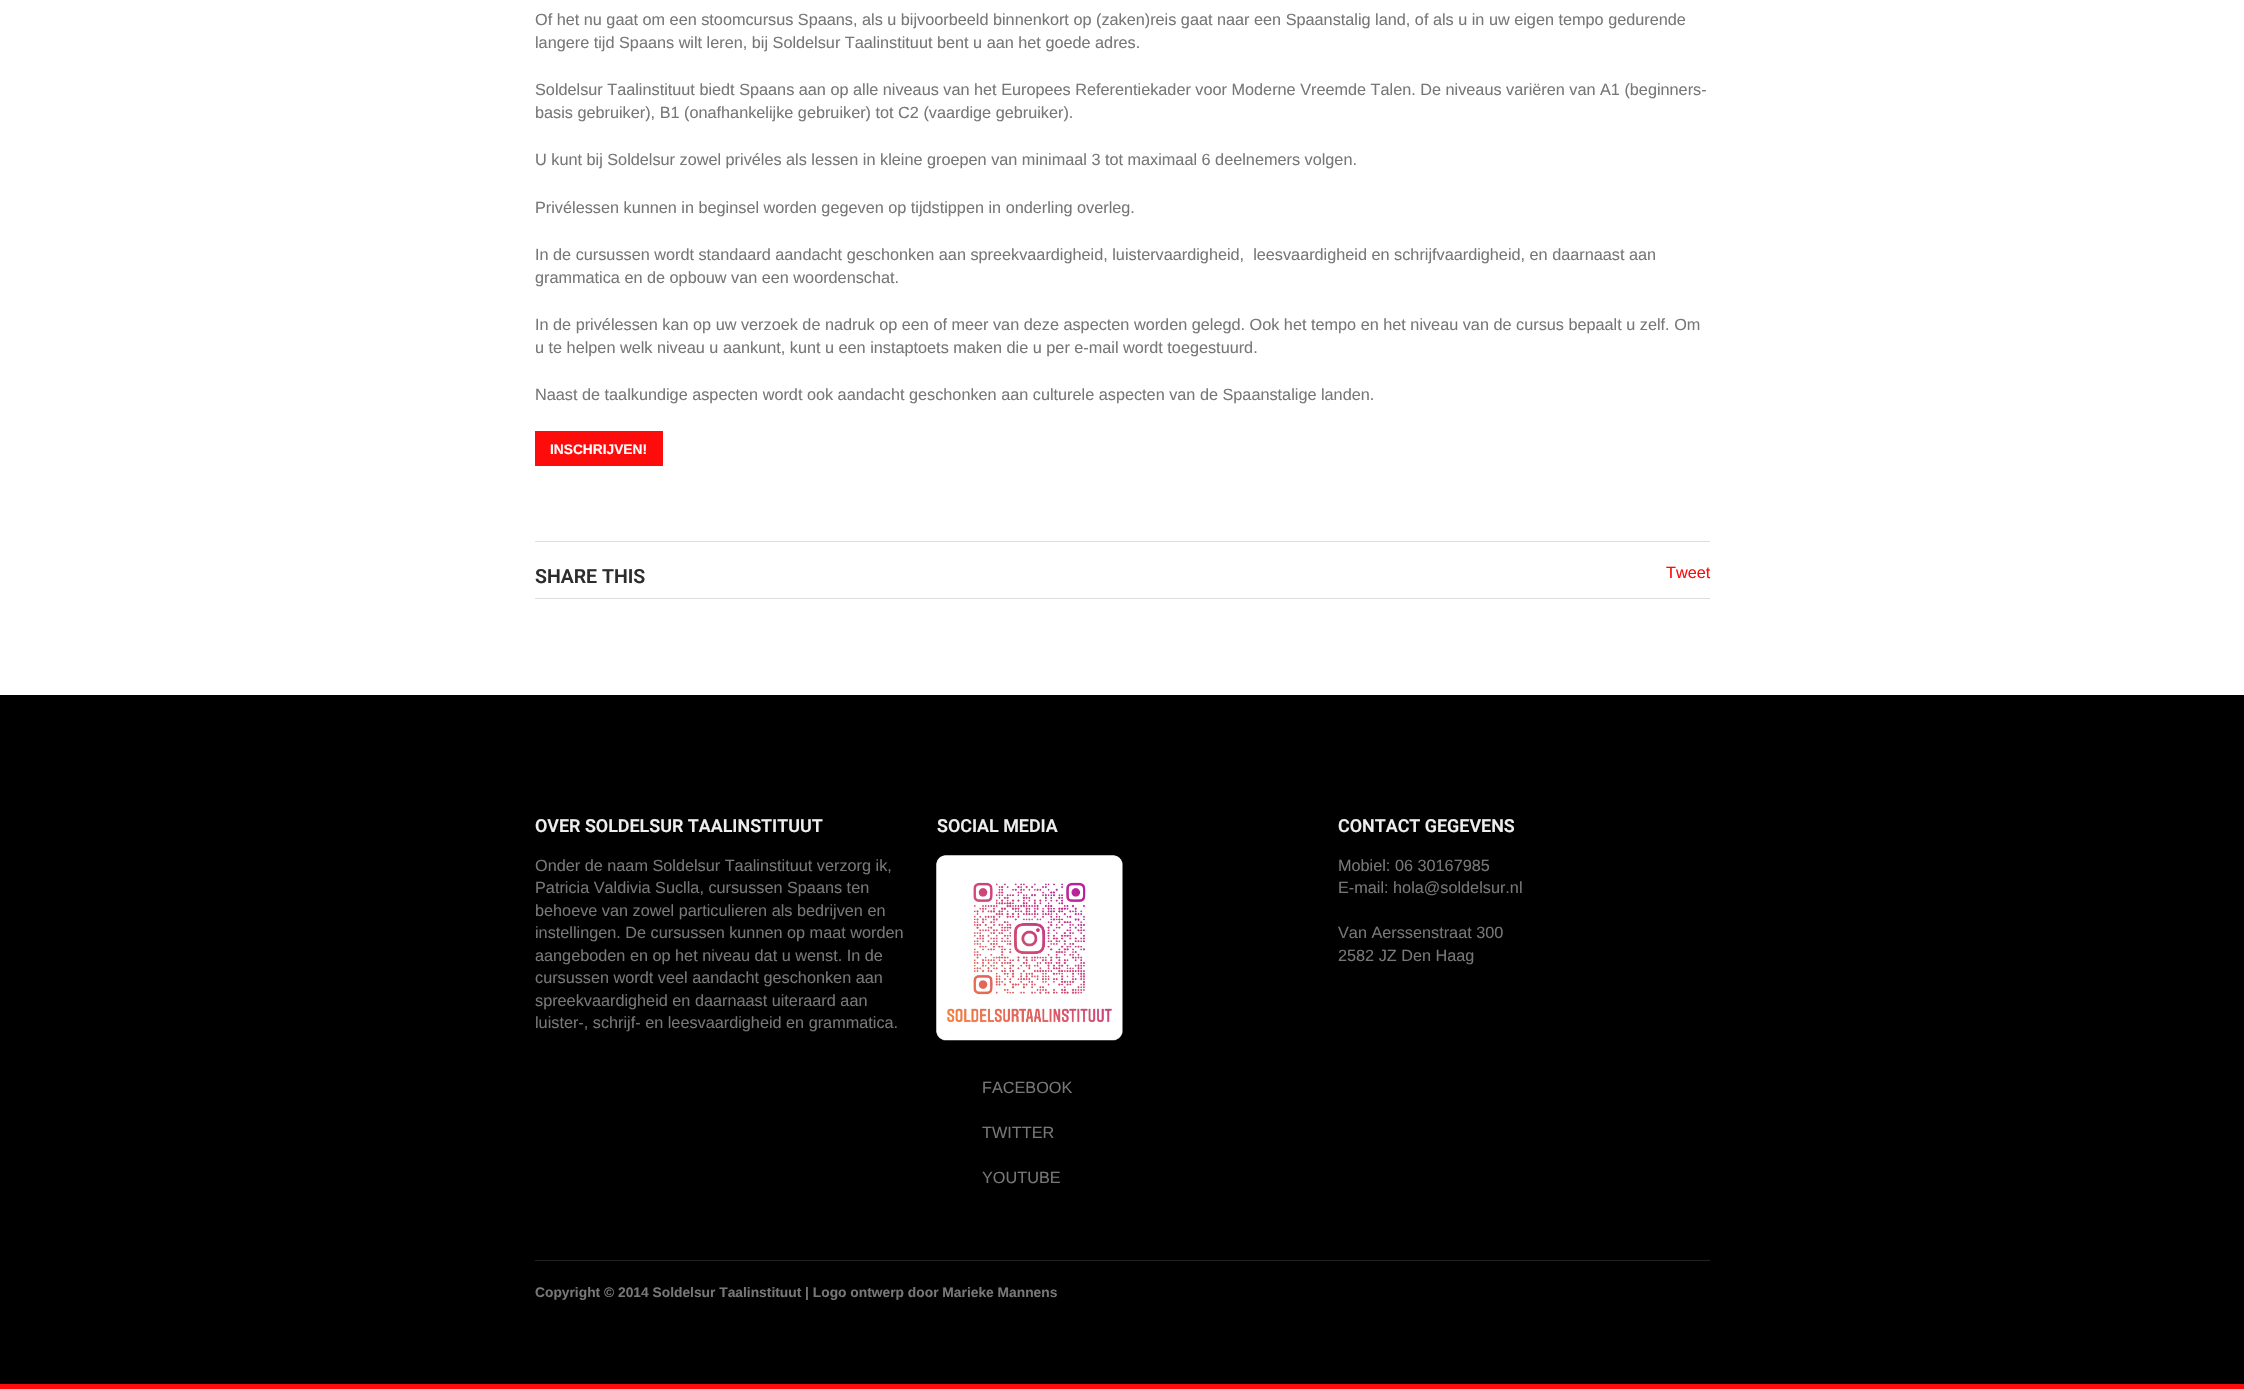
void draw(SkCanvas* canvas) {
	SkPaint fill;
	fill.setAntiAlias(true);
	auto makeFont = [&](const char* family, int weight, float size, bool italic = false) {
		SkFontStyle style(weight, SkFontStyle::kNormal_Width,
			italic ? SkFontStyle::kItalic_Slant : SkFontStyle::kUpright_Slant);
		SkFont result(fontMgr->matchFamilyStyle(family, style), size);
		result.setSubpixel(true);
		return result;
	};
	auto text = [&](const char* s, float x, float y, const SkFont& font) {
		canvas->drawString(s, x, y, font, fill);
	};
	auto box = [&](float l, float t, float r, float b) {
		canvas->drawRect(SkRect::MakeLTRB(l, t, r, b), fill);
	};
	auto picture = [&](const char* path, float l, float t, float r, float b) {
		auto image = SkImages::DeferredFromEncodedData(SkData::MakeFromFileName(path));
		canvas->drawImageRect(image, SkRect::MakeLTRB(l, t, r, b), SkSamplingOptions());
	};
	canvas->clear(0xFFFFFFFF);
	fill.setColor(0xFFFE0B0B);
	box(535, 431, 663, 466);
	fill.setColor(0xFFDDDDDD);
	box(535, 541, 1710, 542);
	box(535, 598, 1710, 599);
	fill.setColor(0xFF000000);
	box(0, 695, 2244, 1384);
	fill.setColor(0xFFFE0B0B);
	box(0, 1384, 2244, 1389);
	fill.setColor(0xFF222222);
	box(535, 1260, 1710, 1261);
	picture("image0.png", 936, 855, 1123, 1041);
	auto font1 = makeFont("Liberation Sans", 400, 16.25f);
	fill.setColor(0xFF777777);
	text("Of het nu gaat om een stoomcursus Spaans, als u bijvoorbeeld binnenkort op (zaken)reis gaat naar een Spaanstalig land, of als u in uw eigen tempo gedurende", 535, 25, font1);
	text("langere tijd Spaans wilt leren, bij Soldelsur Taalinstituut bent u aan het goede adres.", 535, 48, font1);
	text("Soldelsur Taalinstituut biedt Spaans aan op alle niveaus van het Europees Referentiekader voor Moderne Vreemde Talen. De niveaus variëren van A1 (beginners-", 535, 95, font1);
	text("basis gebruiker), B1 (onafhankelijke gebruiker) tot C2 (vaardige gebruiker).", 535, 118, font1);
	text("U kunt bij Soldelsur zowel privéles als lessen in kleine groepen van minimaal 3 tot maximaal 6 deelnemers volgen.", 535, 165, font1);
	text("Privélessen kunnen in beginsel worden gegeven op tijdstippen in onderling overleg.", 535, 213, font1);
	text("In de cursussen wordt standaard aandacht geschonken aan spreekvaardigheid, luistervaardigheid,  leesvaardigheid en schrijfvaardigheid, en daarnaast aan", 535, 260, font1);
	text("grammatica en de opbouw van een woordenschat.", 535, 283, font1);
	text("In de privélessen kan op uw verzoek de nadruk op een of meer van deze aspecten worden gelegd. Ook het tempo en het niveau van de cursus bepaalt u zelf. Om", 535, 330, font1);
	text("u te helpen welk niveau u aankunt, kunt u een instaptoets maken die u per e-mail wordt toegestuurd.", 535, 353, font1);
	text("Naast de taalkundige aspecten wordt ook aandacht geschonken aan culturele aspecten van de Spaanstalige landen.", 535, 400, font1);
	auto font2 = makeFont("Liberation Sans", 700, 13.75f);
	fill.setColor(0xFFFFFFFF);
	text("INSCHRIJVEN!", 550, 454, font2);
	auto font3 = makeFont("Roboto", 600, 19.5f);
	fill.setColor(0xFF2D2D2D);
	text("SHARE THIS", 535, 583, font3);
	fill.setColor(0xFFFE0B0B);
	text("Tweet", 1666, 578, font1);
	auto font4 = makeFont("Roboto", 600, 17.9f);
	fill.setColor(0xFFEEEEEE);
	text("OVER SOLDELSUR TAALINSTITUUT", 535, 832, font4);
	fill.setColor(0xFF777777);
	text("Onder de naam Soldelsur Taalinstituut verzorg ik,", 535, 871, font1);
	text("Patricia Valdivia Suclla, cursussen Spaans ten", 535, 893, font1);
	text("behoeve van zowel particulieren als bedrijven en", 535, 916, font1);
	text("instellingen. De cursussen kunnen op maat worden", 535, 938, font1);
	text("aangeboden en op het niveau dat u wenst. In de", 535, 961, font1);
	text("cursussen wordt veel aandacht geschonken aan", 535, 983, font1);
	text("spreekvaardigheid en daarnaast uiteraard aan", 535, 1006, font1);
	text("luister-, schrijf- en leesvaardigheid en grammatica.", 535, 1028, font1);
	fill.setColor(0xFFEEEEEE);
	text("SOCIAL MEDIA", 937, 832, font4);
	fill.setColor(0xFF777777);
	text("FACEBOOK", 982, 1093, font1);
	text("TWITTER", 982, 1138, font1);
	text("YOUTUBE", 982, 1183, font1);
	fill.setColor(0xFFEEEEEE);
	text("CONTACT GEGEVENS", 1338, 832, font4);
	fill.setColor(0xFF777777);
	text("Mobiel: 06 30167985", 1338, 871, font1);
	text("E-mail: hola@soldelsur.nl", 1338, 893, font1);
	text("Van Aerssenstraat 300", 1338, 938, font1);
	text("2582 JZ Den Haag", 1338, 961, font1);
	auto font5 = makeFont("Liberation Sans", 700, 13.8f);
	text("Copyright © 2014 Soldelsur Taalinstituut | Logo ontwerp door Marieke Mannens", 535, 1297, font5);
}
